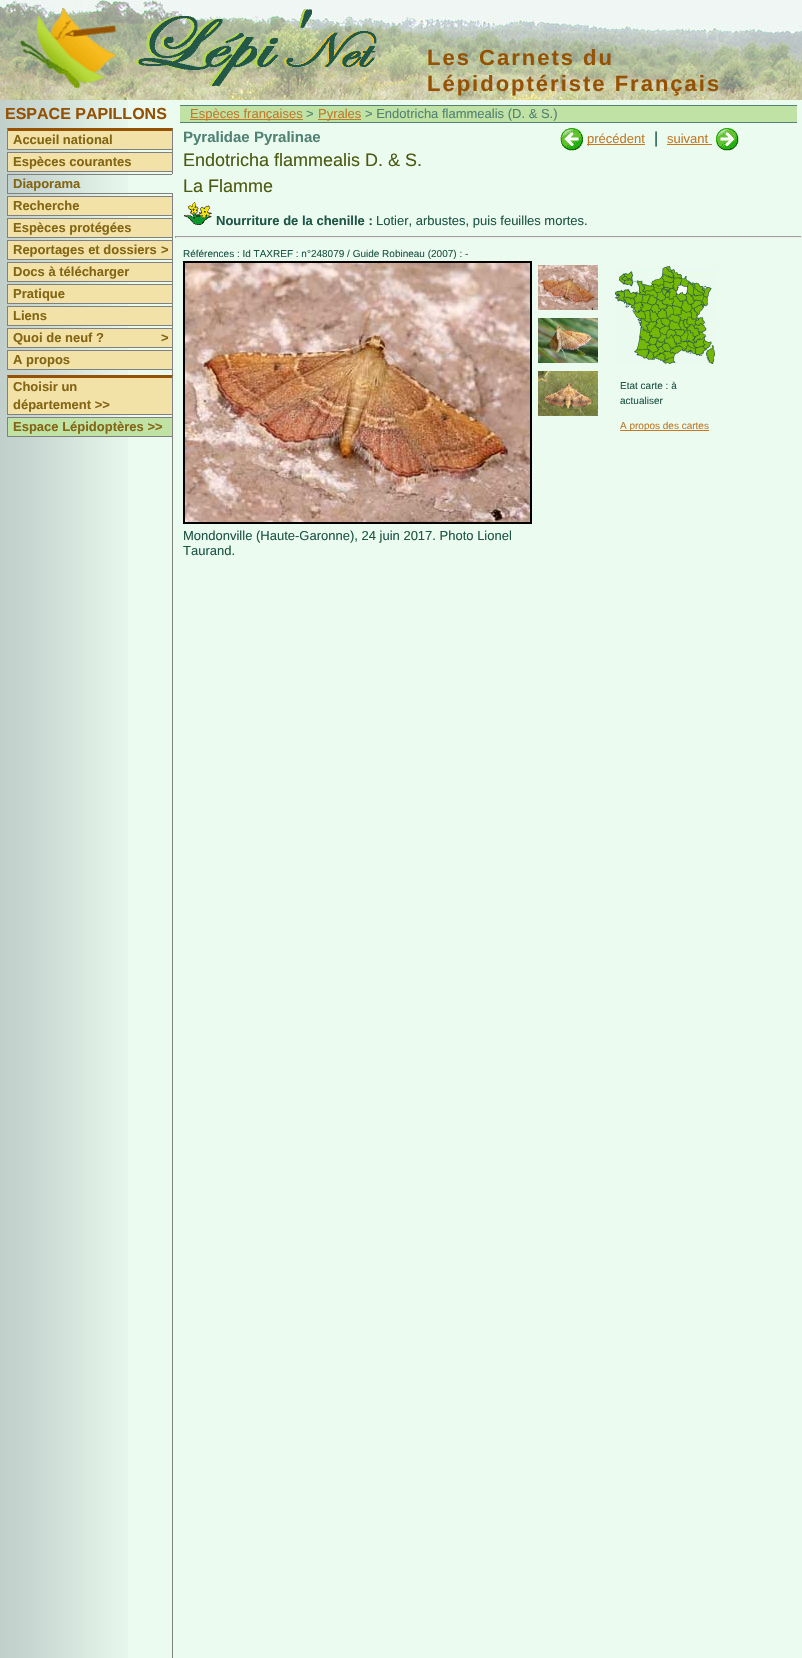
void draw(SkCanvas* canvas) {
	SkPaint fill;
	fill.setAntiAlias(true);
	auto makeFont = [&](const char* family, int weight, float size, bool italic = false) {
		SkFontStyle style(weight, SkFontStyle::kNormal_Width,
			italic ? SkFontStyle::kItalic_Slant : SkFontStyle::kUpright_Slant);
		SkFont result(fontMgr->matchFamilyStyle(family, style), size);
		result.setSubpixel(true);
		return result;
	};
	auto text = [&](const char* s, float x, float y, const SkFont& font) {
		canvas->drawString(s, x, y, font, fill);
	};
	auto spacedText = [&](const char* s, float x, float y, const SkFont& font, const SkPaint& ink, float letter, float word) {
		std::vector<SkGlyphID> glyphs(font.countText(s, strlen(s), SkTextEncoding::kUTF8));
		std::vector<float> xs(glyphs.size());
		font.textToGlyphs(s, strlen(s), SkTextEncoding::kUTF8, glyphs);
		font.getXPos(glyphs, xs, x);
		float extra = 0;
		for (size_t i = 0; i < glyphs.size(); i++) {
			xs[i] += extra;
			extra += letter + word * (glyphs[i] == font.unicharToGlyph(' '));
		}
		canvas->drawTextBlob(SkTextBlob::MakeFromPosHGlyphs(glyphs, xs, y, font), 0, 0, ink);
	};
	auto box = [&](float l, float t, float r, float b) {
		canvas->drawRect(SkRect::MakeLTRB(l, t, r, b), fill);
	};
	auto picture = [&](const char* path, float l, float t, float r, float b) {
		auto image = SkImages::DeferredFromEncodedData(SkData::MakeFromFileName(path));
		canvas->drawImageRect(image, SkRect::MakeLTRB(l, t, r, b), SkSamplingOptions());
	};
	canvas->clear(0xFFEBFBF0);
	picture("image0.png", 0, 0, 802, 100);
	picture("image1.png", 20, 8, 116, 88);
	picture("image2.png", 136, 9, 377, 86);
	picture("image3.png", 0, 100, 128, 1658);
	fill.setColor(0xFF808080);
	box(172, 128, 173, 1658);
	fill.setColor(0xFFF3E2A7);
	box(8, 131, 172, 149);
	fill.setColor(0xFF955204);
	canvas->drawPath(SkPathBuilder().moveTo(7, 128).lineTo(173, 128).lineTo(172, 131).lineTo(8, 131).close().detach(), fill);
	fill.setColor(0xFF808080);
	canvas->drawPath(SkPathBuilder().moveTo(173, 128).lineTo(173, 150).lineTo(172, 149).lineTo(172, 131).close().detach(), fill);
	box(7, 149, 173, 150);
	canvas->drawPath(SkPathBuilder().moveTo(7, 150).lineTo(7, 128).lineTo(8, 131).lineTo(8, 149).close().detach(), fill);
	fill.setColor(0xFFF3E2A7);
	canvas->drawRect(SkRect::MakeLTRB(7.5f, 152.5f, 172.5f, 171.5f), fill);
	fill.setStyle(SkPaint::kStroke_Style);
	fill.setStrokeWidth(1);
	fill.setColor(0xFF808080);
	canvas->drawRect(SkRect::MakeLTRB(7.5f, 152.5f, 172.5f, 171.5f), fill);
	fill.setStyle(SkPaint::kFill_Style);
	box(7, 174, 173, 175);
	fill.setColor(0xFFEBFBF0);
	box(172, 174, 173, 194);
	fill.setColor(0xFF808080);
	box(7, 193, 173, 194);
	box(7, 174, 8, 194);
	fill.setColor(0xFFF3E2A7);
	canvas->drawRect(SkRect::MakeLTRB(7.5f, 196.5f, 172.5f, 215.5f), fill);
	fill.setStyle(SkPaint::kStroke_Style);
	fill.setColor(0xFF808080);
	canvas->drawRect(SkRect::MakeLTRB(7.5f, 196.5f, 172.5f, 215.5f), fill);
	fill.setStyle(SkPaint::kFill_Style);
	fill.setColor(0xFFF3E2A7);
	canvas->drawRect(SkRect::MakeLTRB(7.5f, 218.5f, 172.5f, 237.5f), fill);
	fill.setStyle(SkPaint::kStroke_Style);
	fill.setColor(0xFF808080);
	canvas->drawRect(SkRect::MakeLTRB(7.5f, 218.5f, 172.5f, 237.5f), fill);
	fill.setStyle(SkPaint::kFill_Style);
	fill.setColor(0xFFF3E2A7);
	canvas->drawRect(SkRect::MakeLTRB(7.5f, 240.5f, 172.5f, 259.5f), fill);
	fill.setStyle(SkPaint::kStroke_Style);
	fill.setColor(0xFF808080);
	canvas->drawRect(SkRect::MakeLTRB(7.5f, 240.5f, 172.5f, 259.5f), fill);
	fill.setStyle(SkPaint::kFill_Style);
	fill.setColor(0xFFF3E2A7);
	canvas->drawRect(SkRect::MakeLTRB(7.5f, 262.5f, 172.5f, 281.5f), fill);
	fill.setStyle(SkPaint::kStroke_Style);
	fill.setColor(0xFF808080);
	canvas->drawRect(SkRect::MakeLTRB(7.5f, 262.5f, 172.5f, 281.5f), fill);
	fill.setStyle(SkPaint::kFill_Style);
	fill.setColor(0xFFF3E2A7);
	canvas->drawRect(SkRect::MakeLTRB(7.5f, 284.5f, 172.5f, 303.5f), fill);
	fill.setStyle(SkPaint::kStroke_Style);
	fill.setColor(0xFF808080);
	canvas->drawRect(SkRect::MakeLTRB(7.5f, 284.5f, 172.5f, 303.5f), fill);
	fill.setStyle(SkPaint::kFill_Style);
	fill.setColor(0xFFF3E2A7);
	canvas->drawRect(SkRect::MakeLTRB(7.5f, 306.5f, 172.5f, 325.5f), fill);
	fill.setStyle(SkPaint::kStroke_Style);
	fill.setColor(0xFF808080);
	canvas->drawRect(SkRect::MakeLTRB(7.5f, 306.5f, 172.5f, 325.5f), fill);
	fill.setStyle(SkPaint::kFill_Style);
	fill.setColor(0xFFF3E2A7);
	canvas->drawRect(SkRect::MakeLTRB(7.5f, 328.5f, 172.5f, 347.5f), fill);
	fill.setStyle(SkPaint::kStroke_Style);
	fill.setColor(0xFF808080);
	canvas->drawRect(SkRect::MakeLTRB(7.5f, 328.5f, 172.5f, 347.5f), fill);
	fill.setStyle(SkPaint::kFill_Style);
	fill.setColor(0xFFF3E2A7);
	canvas->drawRect(SkRect::MakeLTRB(7.5f, 350.5f, 172.5f, 369.5f), fill);
	fill.setStyle(SkPaint::kStroke_Style);
	fill.setColor(0xFF808080);
	canvas->drawRect(SkRect::MakeLTRB(7.5f, 350.5f, 172.5f, 369.5f), fill);
	fill.setStyle(SkPaint::kFill_Style);
	fill.setColor(0xFFF3E2A7);
	box(8, 378, 172, 414);
	fill.setColor(0xFF955204);
	canvas->drawPath(SkPathBuilder().moveTo(7, 375).lineTo(173, 375).lineTo(172, 378).lineTo(8, 378).close().detach(), fill);
	fill.setColor(0xFF808080);
	canvas->drawPath(SkPathBuilder().moveTo(173, 375).lineTo(173, 415).lineTo(172, 414).lineTo(172, 378).close().detach(), fill);
	box(7, 414, 173, 415);
	canvas->drawPath(SkPathBuilder().moveTo(7, 415).lineTo(7, 375).lineTo(8, 378).lineTo(8, 414).close().detach(), fill);
	fill.setColor(0xFFC1E2A5);
	canvas->drawRect(SkRect::MakeLTRB(7.5f, 417.5f, 172.5f, 436.5f), fill);
	fill.setStyle(SkPaint::kStroke_Style);
	fill.setColor(0xFF808080);
	canvas->drawRect(SkRect::MakeLTRB(7.5f, 417.5f, 172.5f, 436.5f), fill);
	fill.setStyle(SkPaint::kFill_Style);
	fill.setColor(0xFFC1E2A5);
	box(180, 106, 797, 122);
	fill.setColor(0xFF518274);
	box(180, 105, 797, 106);
	box(180, 122, 797, 123);
	fill.setColor(0xFFC27A29);
	box(190, 119, 303, 120);
	box(318, 119, 361, 120);
	picture("image4.png", 183, 202, 212, 225);
	picture("image5.png", 560, 128, 583, 151);
	box(587, 144, 645, 145);
	box(667, 144, 712, 145);
	picture("image6.png", 716, 128, 739, 151);
	fill.setColor(0xFF9F9F9F);
	box(175, 236, 802, 237);
	fill.setColor(0xFFEEEEEE);
	box(801, 236, 802, 238);
	box(175, 237, 802, 238);
	fill.setColor(0xFF9F9F9F);
	box(175, 236, 176, 238);
	picture("image7.png", 538, 265, 598, 310);
	picture("image8.png", 538, 318, 598, 363);
	picture("image9.png", 538, 371, 598, 416);
	picture("image10.png", 615, 266, 715, 364);
	fill.setColor(0xFFC27A29);
	box(620, 430, 709, 431);
	fill.setStyle(SkPaint::kStroke_Style);
	fill.setStrokeWidth(2);
	fill.setColor(0xFF000000);
	canvas->drawRect(SkRect::MakeLTRB(184, 262, 531, 523), fill);
	picture("image11.png", 185, 263, 530, 522);
	auto font1 = makeFont("Liberation Sans", 700, 22);
	fill.setStyle(SkPaint::kFill_Style);
	fill.setColor(0xFF955204);
	spacedText("Les Carnets du", 427, 65, font1, fill, 2, 0);
	spacedText("Lépidoptériste Français", 427, 91, font1, fill, 2, 0);
	auto font2 = makeFont("Liberation Sans", 700, 16);
	text("ESPACE PAPILLONS", 5, 119, font2);
	auto font3 = makeFont("Liberation Sans", 700, 13);
	fill.setColor(0xFF836514);
	text("Accueil national", 13, 144, font3);
	text("Espèces courantes", 13, 166, font3);
	text("Diaporama", 13, 188, font3);
	text("Recherche", 13, 210, font3);
	text("Espèces protégées", 13, 232, font3);
	text("Reportages et dossiers", 13, 254, font3);
	text(">", 161, 254, font3);
	text("Docs à télécharger", 13, 276, font3);
	text("Pratique", 13, 298, font3);
	text("Liens", 13, 320, font3);
	text("Quoi de neuf ?", 13, 342, font3);
	text(">", 161, 342, font3);
	text("A propos", 13, 364, font3);
	text("Choisir un", 13, 391, font3);
	text("département >>", 13, 409, font3);
	text("Espace Lépidoptères >>", 13, 431, font3);
	auto font4 = makeFont("Liberation Sans", 400, 13);
	fill.setColor(0xFFC27A29);
	text("Espèces françaises", 190, 118, font4);
	fill.setColor(0xFF518274);
	text(">", 306, 118, font4);
	fill.setColor(0xFFC27A29);
	text("Pyrales", 318, 118, font4);
	fill.setColor(0xFF518274);
	text("> Endotricha flammealis (D. & S.)", 365, 118, font4);
	auto font5 = makeFont("Liberation Sans", 700, 15);
	text("Pyralidae Pyralinae", 183, 142, font5);
	auto font6 = makeFont("Liberation Sans", 400, 18);
	fill.setColor(0xFF4D5A12);
	text("Endotricha flammealis D. & S.", 183, 166, font6);
	text("La Flamme", 183, 192, font6);
	fill.setColor(0xFF1F5647);
	text("Nourriture de la chenille :", 216, 225, font3);
	text("Lotier, arbustes, puis feuilles mortes.", 376, 225, font4);
	fill.setColor(0xFFC27A29);
	text("précédent", 587, 143, font4);
	auto font7 = makeFont("Liberation Sans", 400, 16);
	fill.setColor(0xFF1F5647);
	text("|", 654, 143, font7);
	fill.setColor(0xFFC27A29);
	text("suivant", 667, 143, font4);
	auto font8 = makeFont("Liberation Sans", 400, 10);
	fill.setColor(0xFF1F5647);
	text("Références : Id TAXREF : n°248079 / Guide Robineau (2007) : -", 183, 257, font8);
	text("Etat carte : à", 620, 389, font8);
	text("actualiser", 620, 404, font8);
	fill.setColor(0xFFC27A29);
	text("A propos des cartes", 620, 429, font8);
	fill.setColor(0xFF1F5647);
	text("Mondonville (Haute-Garonne), 24 juin 2017. Photo Lionel", 183, 540, font4);
	text("Taurand.", 183, 555, font4);
}
